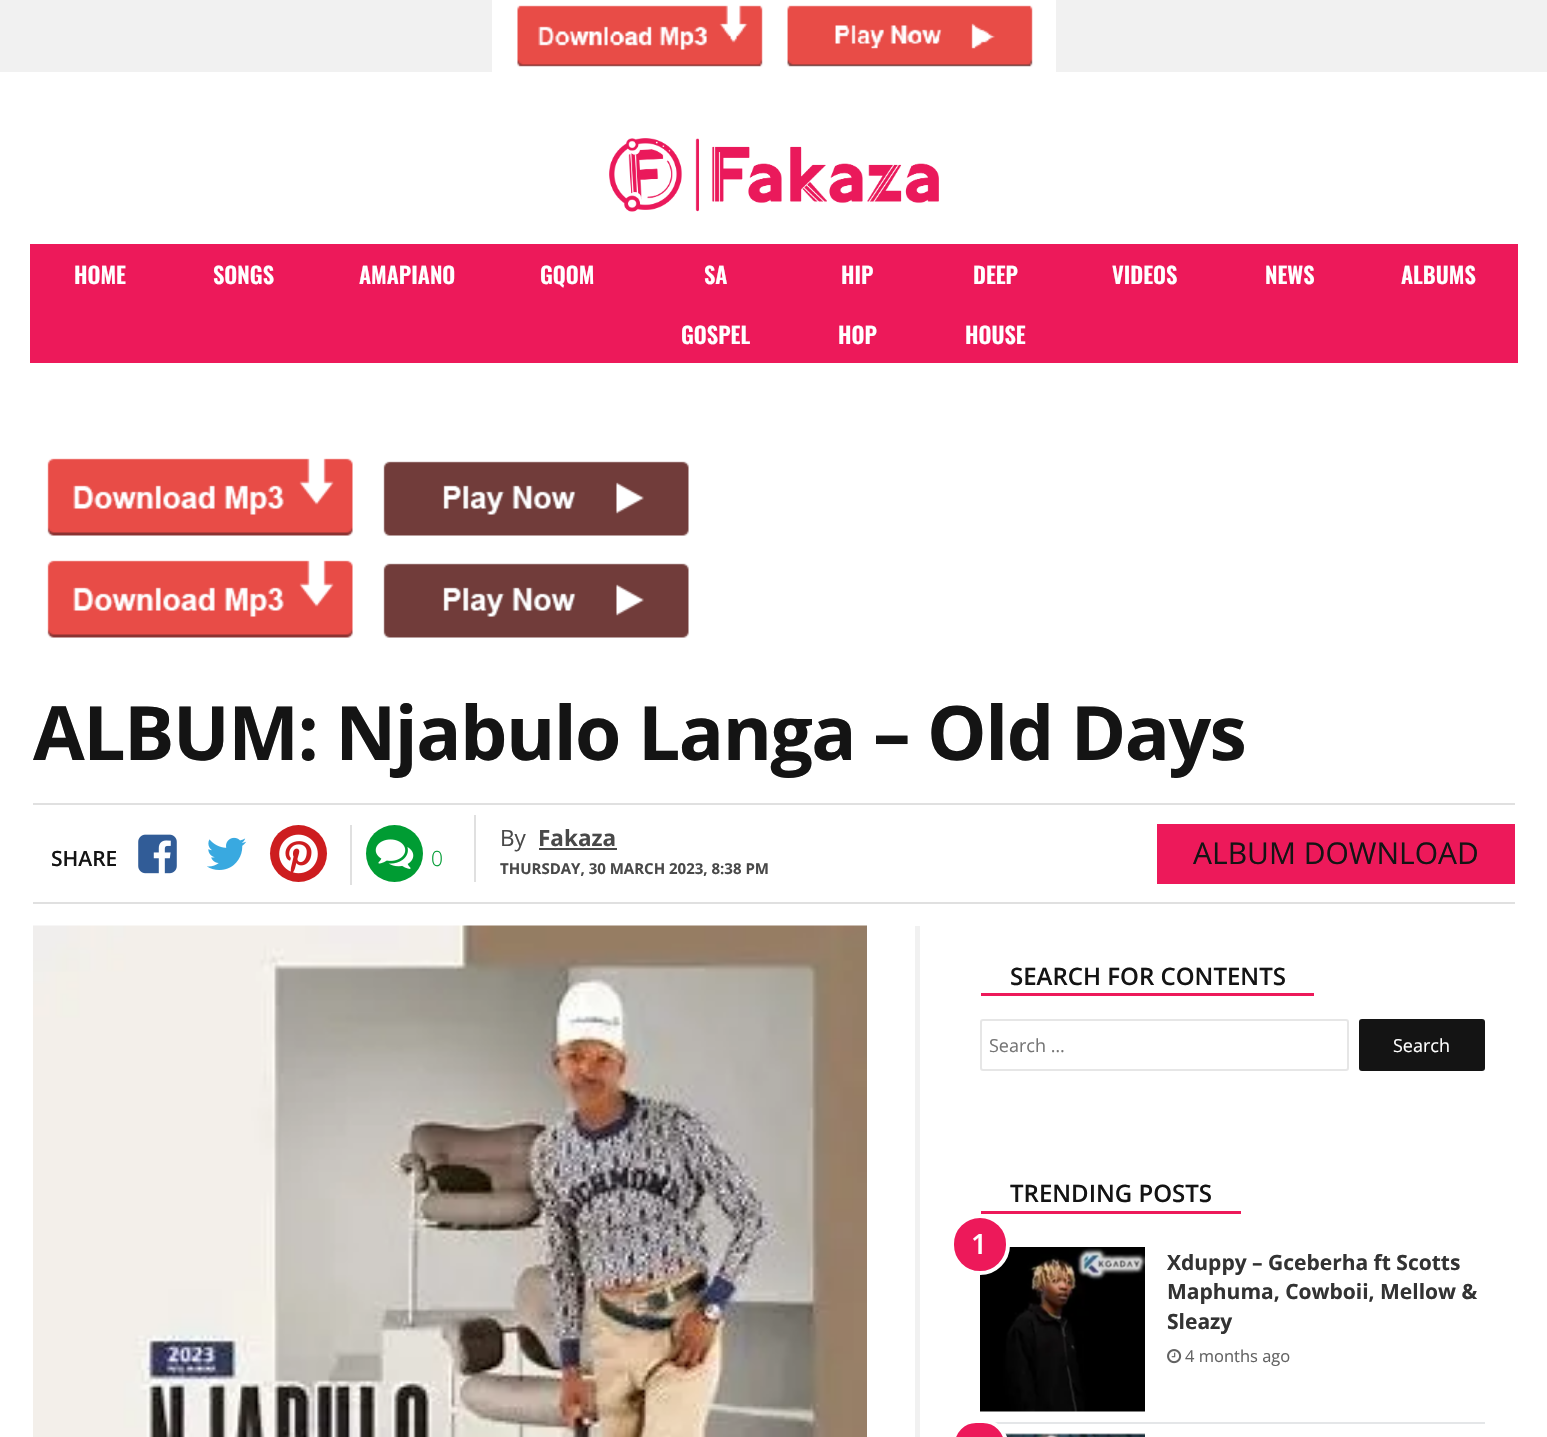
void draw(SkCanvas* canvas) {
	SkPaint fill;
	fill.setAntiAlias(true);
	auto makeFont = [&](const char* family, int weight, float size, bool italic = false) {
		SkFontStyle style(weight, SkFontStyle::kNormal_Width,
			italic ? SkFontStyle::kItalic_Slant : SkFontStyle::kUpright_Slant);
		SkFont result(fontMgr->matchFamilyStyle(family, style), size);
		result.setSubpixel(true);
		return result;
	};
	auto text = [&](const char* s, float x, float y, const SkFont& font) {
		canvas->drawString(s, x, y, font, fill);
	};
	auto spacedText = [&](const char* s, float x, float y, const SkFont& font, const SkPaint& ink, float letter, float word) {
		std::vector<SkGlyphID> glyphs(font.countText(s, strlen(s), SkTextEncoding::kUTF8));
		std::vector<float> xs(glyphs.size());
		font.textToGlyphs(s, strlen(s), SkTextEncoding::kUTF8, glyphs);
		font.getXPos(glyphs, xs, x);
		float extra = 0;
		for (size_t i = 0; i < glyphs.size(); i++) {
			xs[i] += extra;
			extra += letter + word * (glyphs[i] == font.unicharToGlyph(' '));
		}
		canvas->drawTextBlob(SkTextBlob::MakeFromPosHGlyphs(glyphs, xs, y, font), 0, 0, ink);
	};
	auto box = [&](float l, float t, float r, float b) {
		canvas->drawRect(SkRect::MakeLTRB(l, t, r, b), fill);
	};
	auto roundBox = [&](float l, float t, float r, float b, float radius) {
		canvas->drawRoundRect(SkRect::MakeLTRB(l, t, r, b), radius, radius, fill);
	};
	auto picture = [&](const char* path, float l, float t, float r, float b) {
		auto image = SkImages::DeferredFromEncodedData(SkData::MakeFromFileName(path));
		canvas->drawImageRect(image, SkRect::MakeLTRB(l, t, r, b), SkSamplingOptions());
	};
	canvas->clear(0xFFF1F1F1);
	picture("image0.png", 492, 0, 1056, 72);
	fill.setColor(0xFFFFFFFF);
	box(0, 72, 1547, 1437);
	picture("image1.png", 609, 138, 939, 212);
	fill.setColor(0xFFED195A);
	box(30, 244, 1518, 363);
	picture("image2.png", 47, 458, 689, 536);
	picture("image2.png", 47, 560, 689, 638);
	fill.setColor(0xFFE0E0E0);
	box(33, 803, 1515, 805);
	box(33, 902, 1515, 904);
	picture("image3.png", 138, 834, 177, 874);
	picture("image4.png", 207, 837, 247, 870);
	fill.setColor(0xFFCD1D1F);
	canvas->drawCircle(298.5f, 853.5f, 28.5f, fill);
	picture("image5.png", 279, 834, 318, 874);
	fill.setColor(0xFFE0E0E0);
	box(350, 825, 352, 885);
	fill.setColor(0xFF009C33);
	canvas->drawCircle(394.5f, 853.5f, 28.5f, fill);
	picture("image6.png", 375, 839, 414, 869);
	fill.setColor(0xFFE0E0E0);
	box(474, 815, 476, 882);
	fill.setColor(0xFF494949);
	box(539, 848, 617, 850);
	fill.setColor(0xFFED195A);
	box(1157, 824, 1515, 884);
	picture("image7.png", 33, 925, 867, 1437);
	fill.setColor(0xFFF1F1F1);
	box(915, 926, 920, 1437);
	fill.setColor(0xFFED195A);
	box(981, 993, 1314, 996);
	fill.setStyle(SkPaint::kStroke_Style);
	fill.setStrokeWidth(2);
	fill.setColor(0xFFE6E6E6);
	canvas->drawRoundRect(SkRect::MakeLTRB(981, 1020, 1348, 1070), 2, 2, fill);
	fill.setStyle(SkPaint::kFill_Style);
	fill.setColor(0xFF141414);
	roundBox(1359, 1019, 1485, 1071, 3);
	fill.setColor(0xFFED195A);
	box(981, 1211, 1241, 1214);
	fill.setColor(0xFFE4E6E8);
	box(992, 1422, 1485, 1424);
	picture("image8.png", 980, 1247, 1145, 1412);
	fill.setColor(0xFFED195A);
	canvas->drawRoundRect(SkRect::MakeLTRB(952, 1216, 1008, 1273), 28, 28, fill);
	fill.setStyle(SkPaint::kStroke_Style);
	fill.setStrokeWidth(4);
	fill.setColor(0xFFFFFFFF);
	canvas->drawRoundRect(SkRect::MakeLTRB(952, 1216, 1008, 1273), 28, 28, fill);
	picture("image9.png", 1167, 1349, 1182, 1364);
	picture("image10.png", 1004, 1433, 1145, 1437);
	fill.setStyle(SkPaint::kFill_Style);
	fill.setColor(0xFFED195A);
	canvas->drawRoundRect(SkRect::MakeLTRB(953, 1421, 1006, 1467), 26, 26, fill);
	fill.setStyle(SkPaint::kStroke_Style);
	fill.setColor(0xFFFFFFFF);
	canvas->drawRoundRect(SkRect::MakeLTRB(953, 1421, 1006, 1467), 26, 26, fill);
	auto font1 = makeFont("Oswald", 600, 22.5f);
	fill.setStyle(SkPaint::kFill_Style);
	text("HOME", 74, 284, font1);
	text("SONGS", 213, 284, font1);
	text("AMAPIANO", 359, 284, font1);
	text("GQOM", 540, 284, font1);
	text("SA", 704, 284, font1);
	text("GOSPEL", 681, 344, font1);
	text("HIP", 841, 284, font1);
	text("HOP", 838, 344, font1);
	text("DEEP", 973, 284, font1);
	text("HOUSE", 965, 344, font1);
	text("VIDEOS", 1112, 284, font1);
	text("NEWS", 1265, 284, font1);
	text("ALBUMS", 1401, 284, font1);
	auto font2 = makeFont("Open Sans", 700, 75);
	fill.setColor(0xFF141414);
	spacedText("ALBUM: Njabulo Langa – Old Days", 33, 760, font2, fill, -1.5f, 0);
	auto font3 = makeFont("Open Sans", 600, 21);
	text("SHARE", 51, 866, font3);
	auto font4 = makeFont("Open Sans", 300, 21);
	fill.setColor(0xFF009C33);
	text("0", 431, 866, font4);
	auto font5 = makeFont("Open Sans", 400, 22.5f);
	fill.setColor(0xFF494949);
	text("By", 500, 846, font5);
	auto font6 = makeFont("Open Sans", 700, 22.5f);
	text("Fakaza", 538, 846, font6);
	auto font7 = makeFont("Open Sans", 700, 15);
	text("THURSDAY, 30 MARCH 2023, 8:38 PM", 500, 874, font7);
	auto font8 = makeFont("Open Sans", 400, 30);
	fill.setColor(0xFF141414);
	text("ALBUM DOWNLOAD", 1193, 864, font8);
	auto font9 = makeFont("Open Sans", 600, 24);
	text("SEARCH FOR CONTENTS", 1010, 985, font9);
	auto font10 = makeFont("Open Sans", 400, 18);
	fill.setColor(0xFF757575);
	text("Search …", 989, 1052, font10);
	fill.setColor(0xFFFFFFFF);
	text("Search", 1393, 1052, font10);
	fill.setColor(0xFF141414);
	text("TRENDING POSTS", 1010, 1202, font9);
	auto font11 = makeFont("Open Sans", 600, 28);
	fill.setColor(0xFFFFFFFF);
	text("1", 971, 1254, font11);
	auto font12 = makeFont("Open Sans", 700, 21);
	fill.setColor(0xFF333333);
	text("Xduppy – Gceberha ft Scotts", 1167, 1270, font12);
	text("Maphuma, Cowboii, Mellow &", 1167, 1299, font12);
	text("Sleazy", 1167, 1329, font12);
	auto font13 = makeFont("Open Sans", 400, 16.5f);
	fill.setColor(0xFF626262);
	text("4 months ago", 1185, 1362, font13);
}
